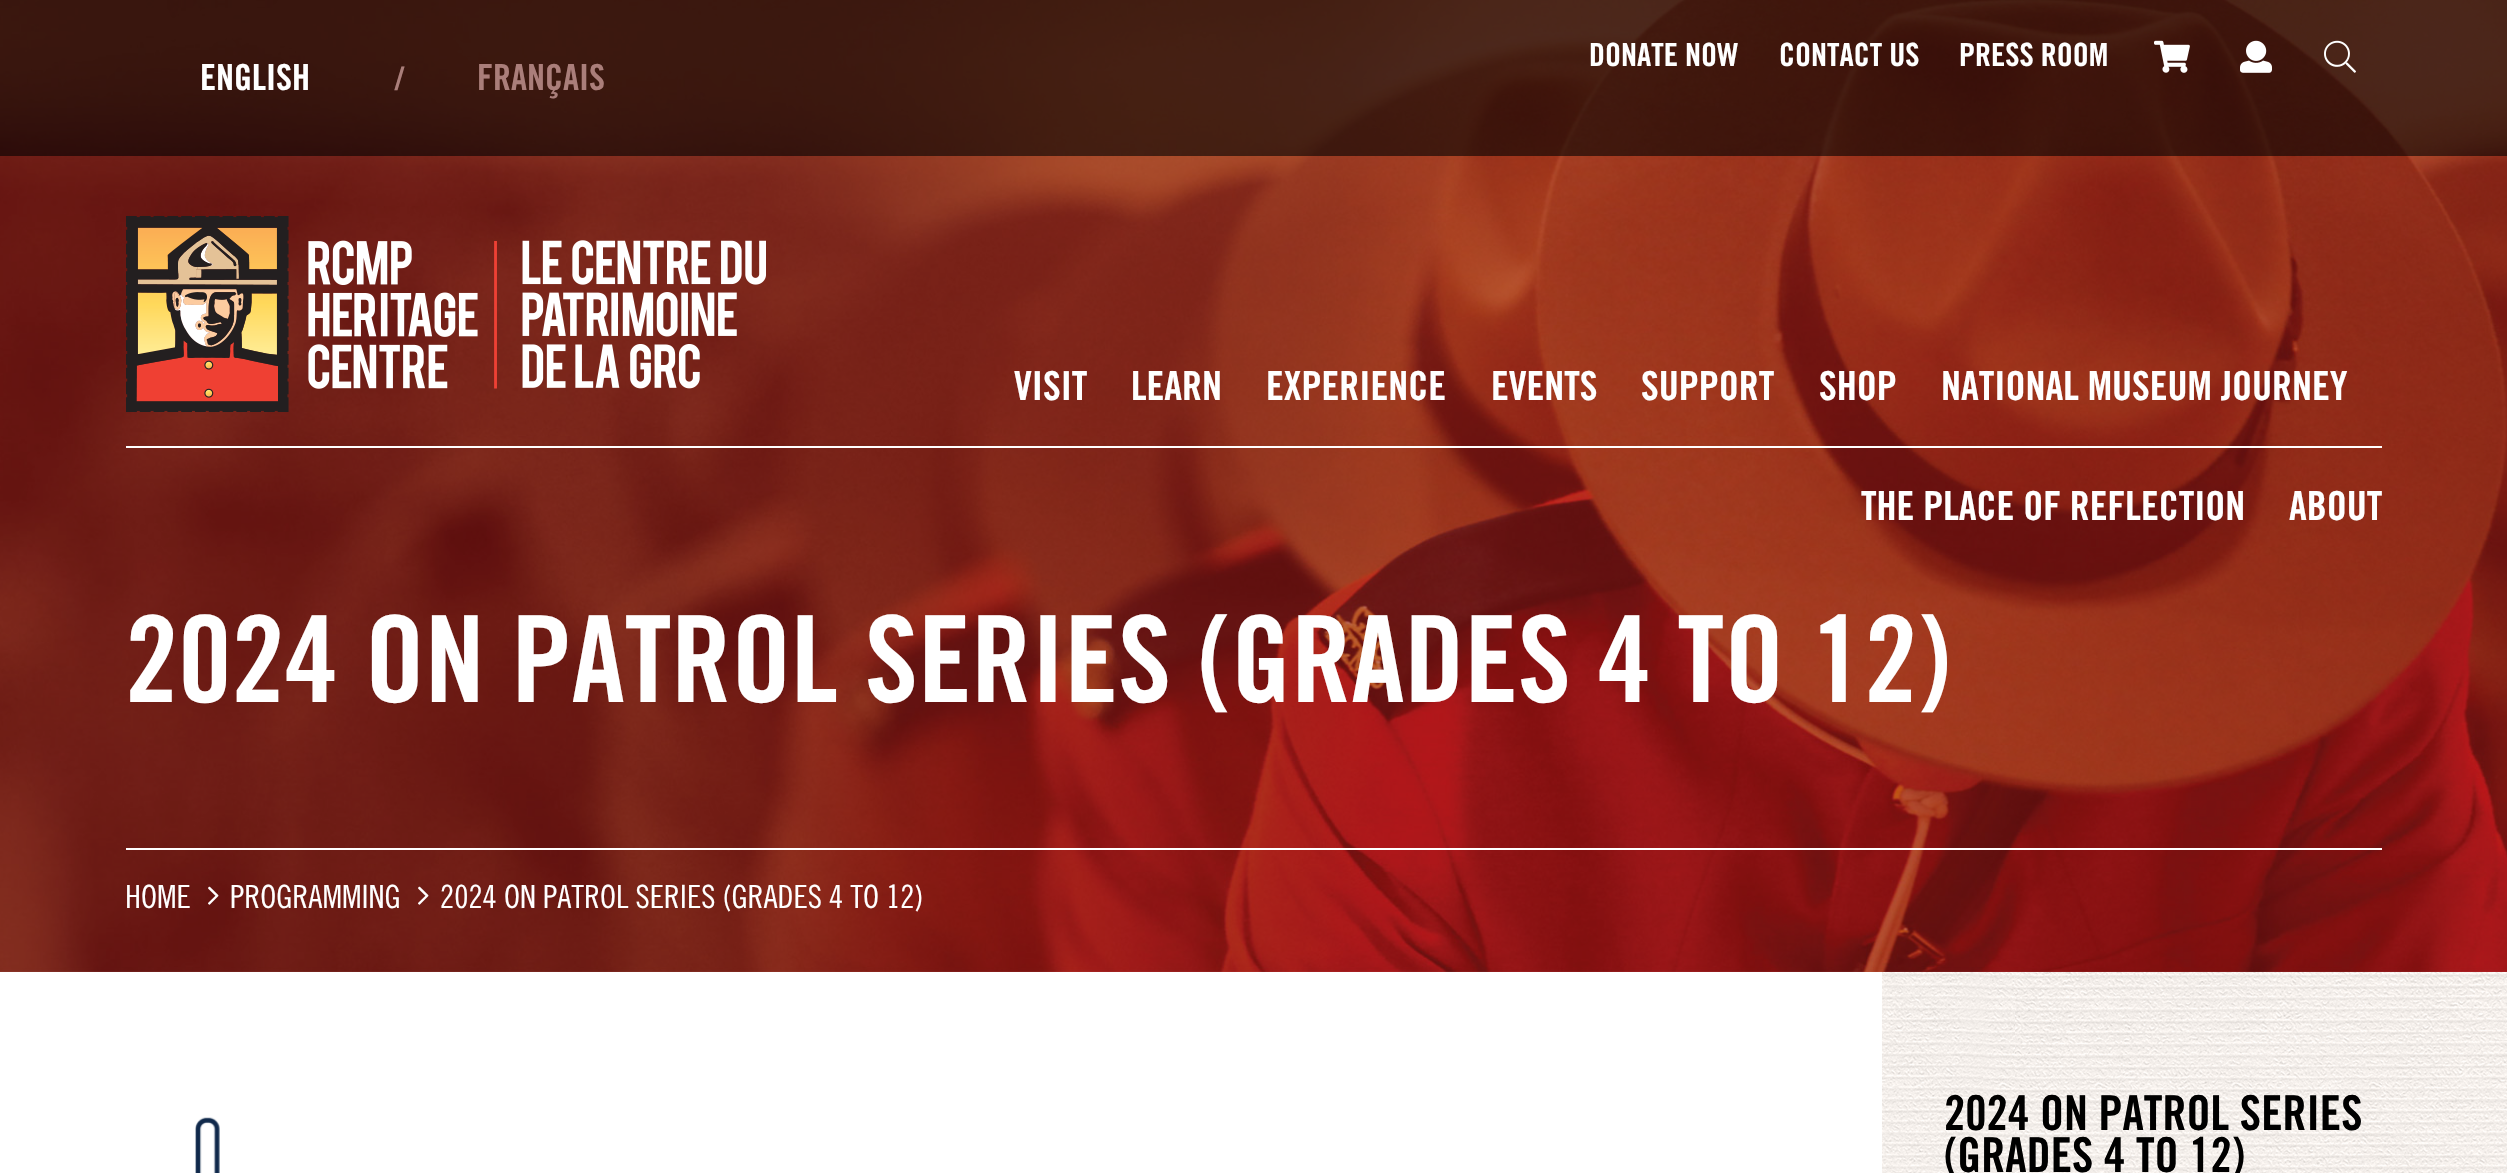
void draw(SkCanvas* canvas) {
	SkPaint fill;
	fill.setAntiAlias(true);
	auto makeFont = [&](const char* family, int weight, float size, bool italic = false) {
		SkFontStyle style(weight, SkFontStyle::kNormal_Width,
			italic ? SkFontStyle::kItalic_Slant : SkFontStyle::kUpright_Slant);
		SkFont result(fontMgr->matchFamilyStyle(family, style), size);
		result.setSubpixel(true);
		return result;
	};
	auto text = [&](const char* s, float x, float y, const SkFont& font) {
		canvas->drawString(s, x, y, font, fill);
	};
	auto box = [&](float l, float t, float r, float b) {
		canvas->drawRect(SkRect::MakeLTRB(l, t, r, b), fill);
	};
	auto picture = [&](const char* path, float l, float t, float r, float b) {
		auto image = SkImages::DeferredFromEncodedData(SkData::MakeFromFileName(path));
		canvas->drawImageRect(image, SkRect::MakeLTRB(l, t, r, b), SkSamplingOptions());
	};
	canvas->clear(0xFFFFFFFF);
	picture("image0.png", 0, 0, 2507, 972);
	fill.setColor(0x99941111);
	box(0, 0, 2507, 156);
	fill.setColor(0x99000000);
	box(0, 0, 2507, 156);
	picture("image1.png", 2154, 40, 2190, 73);
	picture("image2.png", 2240, 40, 2272, 73);
	picture("image3.png", 2324, 40, 2356, 73);
	fill.setColor(0x99941111);
	box(0, 156, 2507, 972);
	fill.setColor(0xFFFFFFFF);
	box(126, 446, 2382, 448);
	picture("image4.png", 126, 216, 766, 412);
	box(126, 848, 2382, 850);
	picture("image5.png", 208, 886, 219, 905);
	picture("image6.png", 418, 886, 429, 905);
	picture("image7.png", 1882, 972, 2507, 1173);
	picture("image8.png", 195, 1117, 220, 1173);
	auto font1 = makeFont("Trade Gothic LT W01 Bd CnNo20", 700, 32);
	text("DONATE NOW", 1589, 66, font1);
	text("CONTACT US", 1779, 66, font1);
	text("PRESS ROOM", 1959, 66, font1);
	auto font2 = makeFont("Trade Gothic LT W01 Bd CnNo20", 700, 36);
	text("ENGLISH", 200, 90, font2);
	fill.setColor(0xFFAA7E7A);
	text("/", 395, 90, font1);
	text("FRANÇAIS", 477, 90, font2);
	auto font3 = makeFont("Trade Gothic LT W01 Bd CnNo20", 700, 40);
	fill.setColor(0xFFFFFFFF);
	text("VISIT", 1014, 400, font3);
	text("LEARN", 1131, 400, font3);
	text("EXPERIENCE", 1266, 400, font3);
	text("EVENTS", 1491, 400, font3);
	text("SUPPORT", 1641, 400, font3);
	text("SHOP", 1819, 400, font3);
	text("NATIONAL MUSEUM JOURNEY", 1941, 400, font3);
	text("THE PLACE OF REFLECTION", 1861, 520, font3);
	text("ABOUT", 2289, 520, font3);
	auto font4 = makeFont("Trade Gothic LT W01 Bd CnNo20", 700, 120);
	text("2024 ON PATROL SERIES (GRADES 4 TO 12)", 125, 702, font4);
	auto font5 = makeFont("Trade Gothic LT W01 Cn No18", 400, 32);
	text("HOME", 125, 908, font5);
	text("PROGRAMMING", 230, 908, font5);
	text("2024 ON PATROL SERIES (GRADES 4 TO 12)", 440, 908, font5);
	auto font6 = makeFont("Trade Gothic LT W01 Bd CnNo20", 700, 48);
	fill.setColor(0xFF000000);
	text("2024 ON PATROL SERIES", 1944, 1130, font6);
	text("(GRADES 4 TO 12)", 1944, 1172, font6);
}
